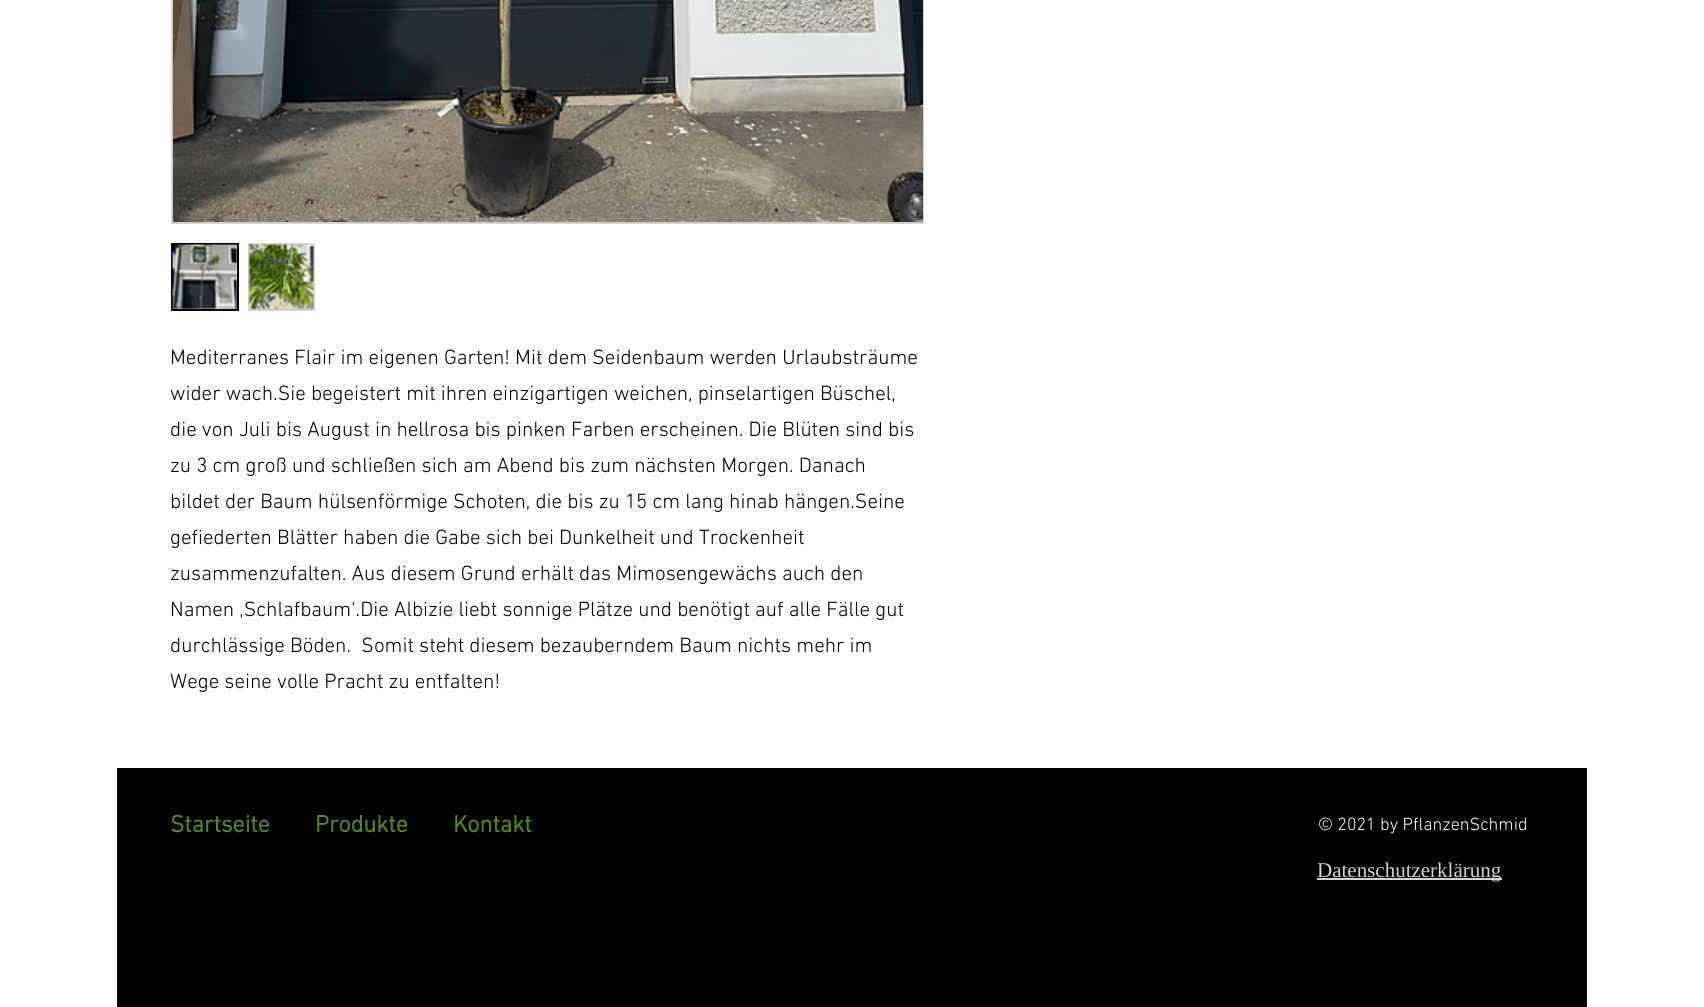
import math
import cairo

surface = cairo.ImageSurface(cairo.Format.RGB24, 1704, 1007)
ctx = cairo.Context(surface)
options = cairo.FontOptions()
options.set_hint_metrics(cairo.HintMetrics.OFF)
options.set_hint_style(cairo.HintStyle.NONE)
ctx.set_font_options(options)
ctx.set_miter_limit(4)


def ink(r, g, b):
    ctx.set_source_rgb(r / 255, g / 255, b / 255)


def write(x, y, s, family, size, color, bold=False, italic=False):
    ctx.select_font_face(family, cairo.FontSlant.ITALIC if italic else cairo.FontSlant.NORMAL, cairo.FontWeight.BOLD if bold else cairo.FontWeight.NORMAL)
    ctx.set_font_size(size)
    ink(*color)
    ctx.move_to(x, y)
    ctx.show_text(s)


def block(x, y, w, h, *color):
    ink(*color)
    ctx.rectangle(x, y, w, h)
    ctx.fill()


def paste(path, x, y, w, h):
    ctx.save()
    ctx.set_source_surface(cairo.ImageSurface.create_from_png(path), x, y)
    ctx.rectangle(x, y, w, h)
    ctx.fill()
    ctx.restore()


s1 = dict(family="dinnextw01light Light", size=21, color=(0, 0, 0))
s2 = dict(family="dinnextw01light", size=24, color=(88, 133, 34), bold=True)
s3 = dict(family="dinnextw01light Light", size=18, color=(255, 255, 255))
s4 = dict(family="Liberation Serif", size=21, color=(212, 208, 211))

ink(255, 255, 255)
ctx.paint()
ctx.rectangle(172, -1, 751, 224)
ink(212, 208, 211)
ctx.stroke()
paste("pic1.png", 173, 0, 750, 222)
ctx.rectangle(172, 244, 66, 66)
ctx.fill_preserve()
ink(0, 0, 0)
ctx.stroke()
paste("pic2.png", 172, 244, 66, 66)
block(248, 243, 67, 68, 212, 208, 211)
paste("pic3.png", 248, 244, 66, 66)
write(170, 364, "Mediterranes Flair im eigenen Garten! Mit dem Seidenbaum werden Urlaubsträume", **s1)
write(170, 400, "wider wach.Sie begeistert mit ihren einzigartigen weichen, pinselartigen Büschel,", **s1)
write(170, 436, "die von Juli bis August in hellrosa bis pinken Farben erscheinen. Die Blüten sind bis", **s1)
write(170, 472, "zu 3 cm groß und schließen sich am Abend bis zum nächsten Morgen. Danach", **s1)
write(170, 508, "bildet der Baum hülsenförmige Schoten, die bis zu 15 cm lang hinab hängen.Seine", **s1)
write(170, 544, "gefiederten Blätter haben die Gabe sich bei Dunkelheit und Trockenheit", **s1)
write(170, 580, "zusammenzufalten. Aus diesem Grund erhält das Mimosengewächs auch den", **s1)
write(170, 616, "Namen ‚Schlafbaum‘.Die Albizie liebt sonnige Plätze und benötigt auf alle Fälle gut", **s1)
write(170, 652, "durchlässige Böden.  Somit steht diesem bezauberndem Baum nichts mehr im", **s1)
write(170, 688, "Wege seine volle Pracht zu entfalten!", **s1)
block(117, 768, 1470, 239, 0, 0, 0)
write(170, 832, "Startseite", **s2)
write(315, 832, "Produkte", **s2)
write(453, 832, "Kontakt", **s2)
write(1318, 830, "© 2021 by PflanzenSchmid", **s3)
block(1317, 878, 185, 2, 212, 208, 211)
write(1317, 877, "Datenschutzerklärung", **s4)
surface.write_to_png("screenshot.png")
